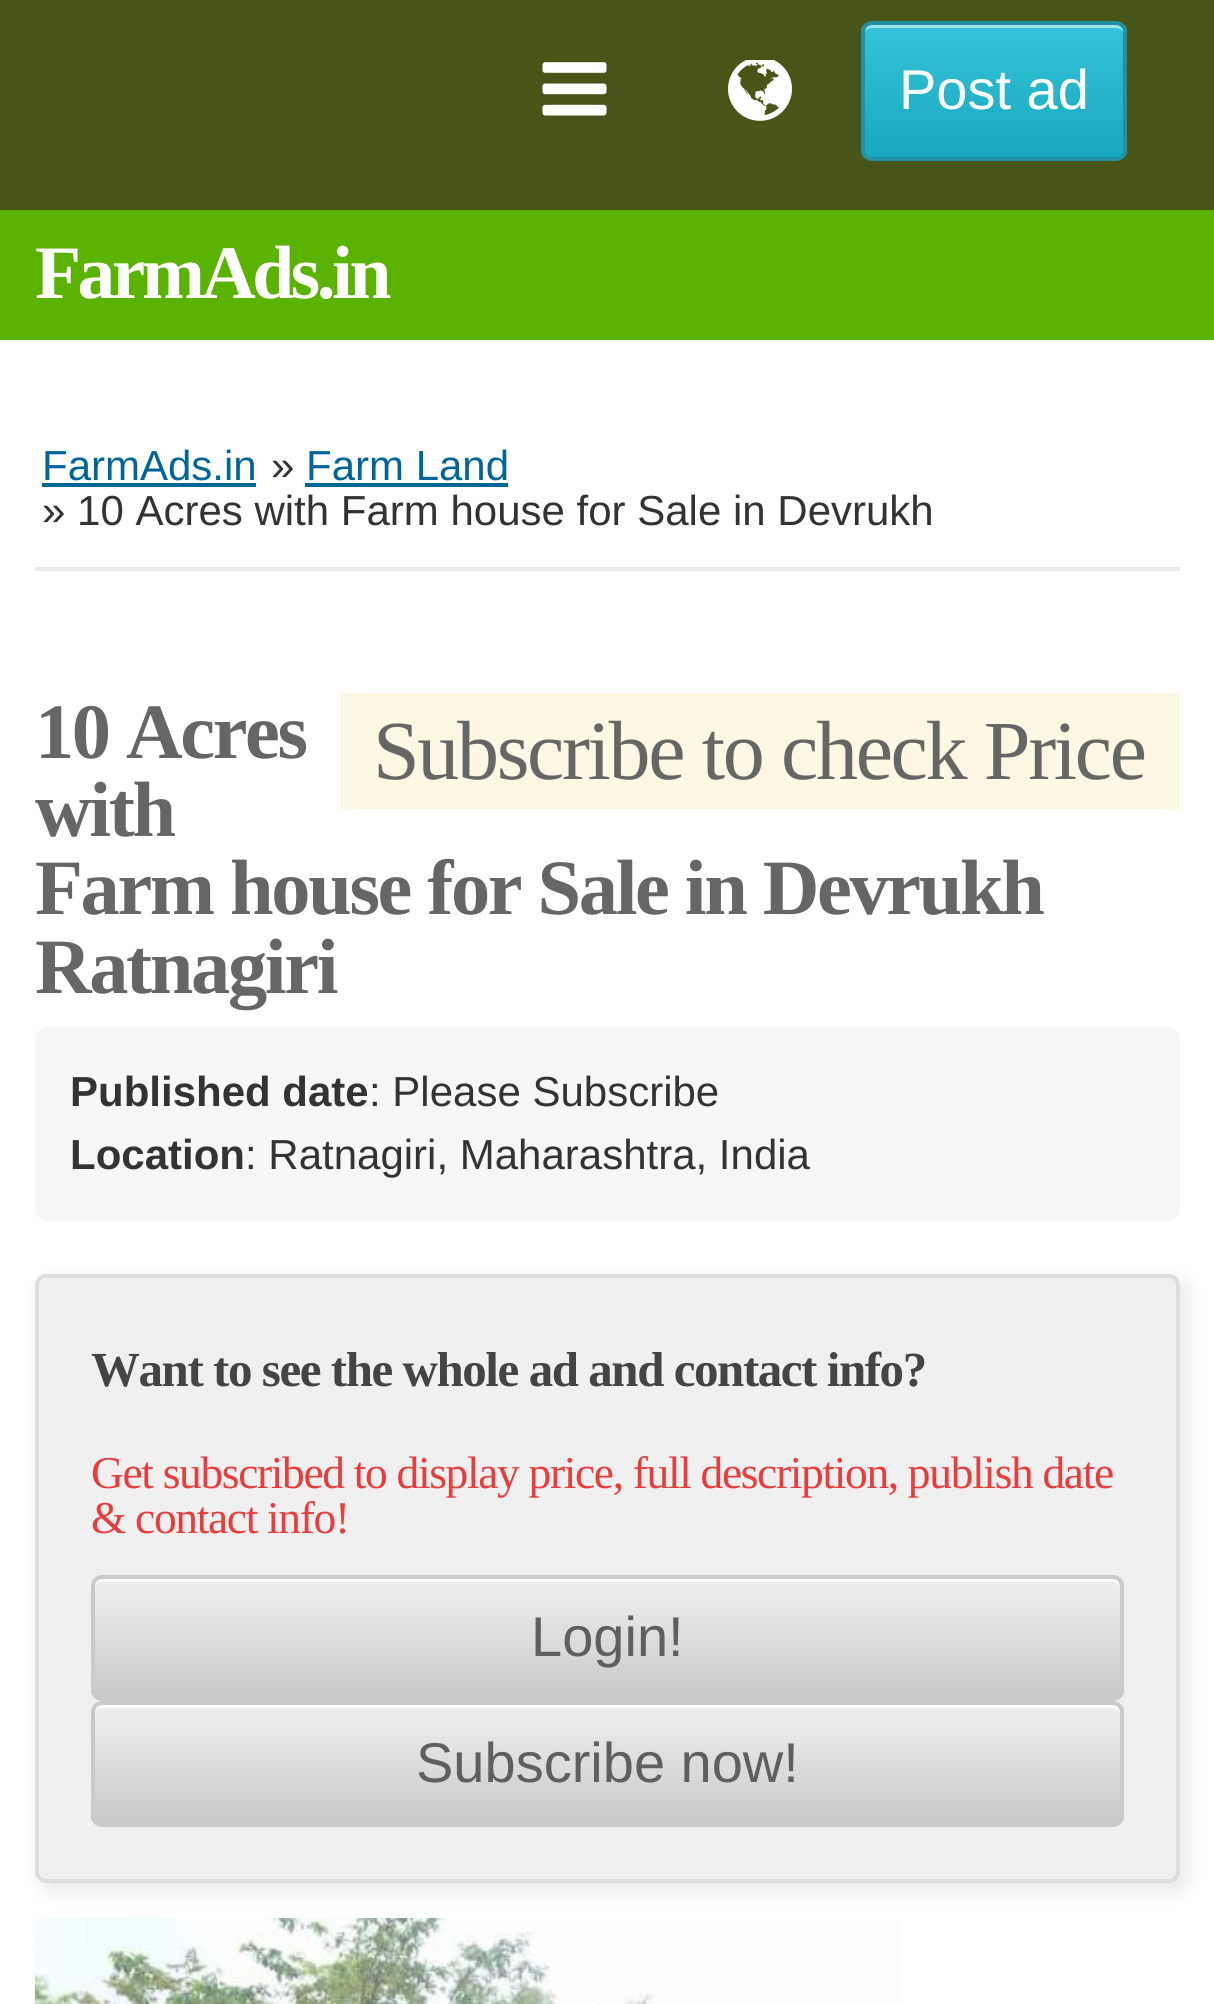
import math
import cairo

surface = cairo.ImageSurface(cairo.Format.RGB24, 1214, 2004)
ctx = cairo.Context(surface)
options = cairo.FontOptions()
options.set_hint_metrics(cairo.HintMetrics.OFF)
options.set_hint_style(cairo.HintStyle.NONE)
ctx.set_font_options(options)
ctx.set_miter_limit(4)


def ink(r, g, b):
    ctx.set_source_rgb(r / 255, g / 255, b / 255)


def write(x, y, s, family, size, color, bold=False, italic=False):
    ctx.select_font_face(family, cairo.FontSlant.ITALIC if italic else cairo.FontSlant.NORMAL, cairo.FontWeight.BOLD if bold else cairo.FontWeight.NORMAL)
    ctx.set_font_size(size)
    ink(*color)
    ctx.move_to(x, y)
    ctx.show_text(s)


def write_spaced(x, y, s, letter, word):
    ctx.move_to(x, y)
    for ch in s:
        ctx.show_text(ch)
        ctx.rel_move_to(letter + word * (ch == ' '), 0)


def block(x, y, w, h, *color):
    ink(*color)
    ctx.rectangle(x, y, w, h)
    ctx.fill()


def round_path(x, y, w, h, r):
    ctx.new_sub_path()
    for i, (u, v) in enumerate([(x + w - r, y + h - r), (x + r, y + h - r), (x + r, y + r), (x + w - r, y + r)]):
        ctx.arc(u, v, r, i * math.pi / 2, (i + 1) * math.pi / 2)
    ctx.close_path()


def blur_box(x, y, w, h, r, blur, alpha):
    ctx.push_group_with_content(cairo.Content.ALPHA)
    ctx.set_operator(cairo.Operator.SOURCE)
    for i in range(15, -16, -2):
        e = blur * i / 6
        if min(w, h) + 2 * e > 0:
            ctx.set_source_rgba(0, 0, 0, alpha * math.erfc((i - 1) / 8.5) / 2)
            round_path(x - e, y - e, w + 2 * e, h + 2 * e, max(0, min(r + e + blur * .6, min(w, h) / 2 + e)))
            ctx.fill()
    ctx.mask(ctx.pop_group())


def paste(path, x, y, w, h):
    ctx.save()
    ctx.set_source_surface(cairo.ImageSurface.create_from_png(path), x, y)
    ctx.rectangle(x, y, w, h)
    ctx.fill()
    ctx.restore()


s1 = dict(family="Liberation Sans", size=56, color=(255, 255, 255))
s2 = dict(family="Liberation Sans", size=42, color=(0, 102, 153))
s3 = dict(family="Liberation Sans", size=42, color=(51, 51, 51))
s4 = dict(family="Liberation Sans", size=42, color=(51, 51, 51), bold=True)
s5 = dict(family="Liberation Sans", size=56, color=(95, 95, 95))

ink(255, 255, 255)
ctx.paint()
block(0, 210, 1214, 130, 90, 179, 0)
block(0, 0, 1214, 210, 73, 84, 24)
paste("pic1.png", 542, 62, 65, 54)
paste("pic2.png", 728, 60, 64, 61)
ctx.save()
round_path(861, 21, 266, 140, 11)
ctx.clip()
gradient = cairo.LinearGradient(994, 24, 994, 158)
gradient.add_color_stop_rgba(0, 0.208, 0.765, 0.851, 1)
gradient.add_color_stop_rgba(1, 0.094, 0.655, 0.745, 1)
ctx.set_source(gradient)
ctx.rectangle(861, 25, 266, 133)
ctx.fill()
ctx.restore()
ink(160, 227, 237)
ctx.new_path()
ctx.move_to(872, 28)
ctx.line_to(1116, 28)
ctx.curve_to(1120, 28, 1124, 31, 1124, 35)
ctx.line_to(1124, 32)
ctx.curve_to(1124, 28, 1121, 25, 1117, 25)
ctx.line_to(872, 25)
ctx.curve_to(868, 25, 865, 28, 865, 32)
ctx.curve_to(866, 29, 869, 28, 872, 28)
ctx.close_path()
ctx.fill()
round_path(863, 23, 262, 136, 9)
ink(31, 145, 163)
ctx.set_line_width(4)
ctx.stroke()
write(899, 109, "Post ad", **s1)
ctx.select_font_face("Liberation Serif", cairo.FontSlant.NORMAL, cairo.FontWeight.BOLD)
ctx.set_font_size(75.5)
write_spaced(35, 298, "FarmAds.in", -3.5, 0)
block(35, 567, 1145, 4, 234, 234, 234)
write(42, 480, "FarmAds.in", **s2)
block(42, 483, 214, 4, 0, 102, 153)
write(271, 480, "»", **s3)
write(306, 480, "Farm Land", **s2)
block(305, 483, 203, 4, 0, 102, 153)
write(42, 525, "» 10 Acres with Farm house for Sale in Devrukh", **s3)
ctx.select_font_face("Liberation Serif", cairo.FontSlant.NORMAL, cairo.FontWeight.BOLD)
ctx.set_font_size(78.4)
ink(102, 102, 102)
write_spaced(35, 758, "10 Acres", -2.35, 0)
block(340, 693, 840, 116, 252, 248, 227)
ctx.select_font_face("Liberation Serif")
ctx.set_font_size(84)
ink(102, 102, 102)
write_spaced(373, 779, "Subscribe to check Price", -2.35, 0)
ctx.select_font_face("Liberation Serif", cairo.FontSlant.NORMAL, cairo.FontWeight.BOLD)
ctx.set_font_size(78.4)
write_spaced(35, 836, "with", -2.35, 0)
write_spaced(35, 914, "Farm house for Sale in Devrukh", -2.35, 0)
write_spaced(35, 993, "Ratnagiri", -2.35, 0)
ink(247, 247, 247)
round_path(35, 1026, 1145, 196, 14)
ctx.fill()
write(70, 1106, "Published date", **s4)
write(369, 1106, ": Please Subscribe", **s3)
write(70, 1169, "Location", **s4)
write(245, 1169, ": Ratnagiri, Maharashtra, India", **s3)
ink(0, 0, 0)
blur_box(42, 1281, 1145, 609, 11, 10.5, 0.1)
ink(240, 240, 240)
round_path(35, 1274, 1145, 609, 11)
ctx.fill()
round_path(37, 1276, 1141, 605, 9)
ctx.set_source_rgba(0, 0, 0, 0.08)
ctx.stroke()
ctx.select_font_face("Liberation Serif", cairo.FontSlant.NORMAL, cairo.FontWeight.BOLD)
ctx.set_font_size(49)
ink(68, 68, 68)
write_spaced(91, 1386, "Want to see the whole ad and contact info?", -1.45, 0)
ctx.select_font_face("Liberation Serif")
ctx.set_font_size(45.5)
ink(235, 60, 60)
write_spaced(91, 1488, "Get subscribed to display price, full description, publish date", -1.35, 0)
write_spaced(91, 1533, "& contact info!", -1.35, 0)
ctx.save()
round_path(91, 1575, 1033, 126, 11)
ctx.clip()
gradient = cairo.LinearGradient(607, 1579, 607, 1698)
gradient.add_color_stop_rgba(0, 0.941, 0.941, 0.941, 1)
gradient.add_color_stop_rgba(1, 0.788, 0.788, 0.788, 1)
ctx.set_source(gradient)
ctx.rectangle(91, 1579, 1033, 119)
ctx.fill()
ctx.restore()
ink(255, 255, 255)
ctx.new_path()
ctx.move_to(102, 1582)
ctx.line_to(1113, 1582)
ctx.curve_to(1117, 1582, 1120, 1585, 1120, 1589)
ctx.curve_to(1120, 1584, 1119, 1579, 1113, 1579)
ctx.line_to(102, 1579)
ctx.curve_to(98, 1579, 95, 1582, 95, 1586)
ctx.curve_to(96, 1583, 99, 1582, 102, 1582)
ctx.close_path()
ctx.fill()
round_path(93, 1577, 1029, 122, 9)
ink(202, 202, 202)
ctx.stroke()
write(531, 1656, "Login!", **s5)
ctx.save()
round_path(91, 1701, 1033, 126, 11)
ctx.clip()
gradient = cairo.LinearGradient(607, 1705, 607, 1824)
gradient.add_color_stop_rgba(0, 0.941, 0.941, 0.941, 1)
gradient.add_color_stop_rgba(1, 0.788, 0.788, 0.788, 1)
ctx.set_source(gradient)
ctx.rectangle(91, 1705, 1033, 119)
ctx.fill()
ctx.restore()
ink(255, 255, 255)
ctx.new_path()
ctx.move_to(102, 1708)
ctx.line_to(1113, 1708)
ctx.curve_to(1117, 1708, 1120, 1711, 1120, 1715)
ctx.curve_to(1120, 1710, 1119, 1705, 1113, 1705)
ctx.line_to(102, 1705)
ctx.curve_to(98, 1705, 95, 1708, 95, 1712)
ctx.curve_to(96, 1709, 99, 1708, 102, 1708)
ctx.close_path()
ctx.fill()
round_path(93, 1703, 1029, 122, 9)
ink(202, 202, 202)
ctx.stroke()
write(416, 1782, "Subscribe now!", **s5)
paste("pic3.png", 35, 1918, 866, 86)
surface.write_to_png("screenshot.png")
